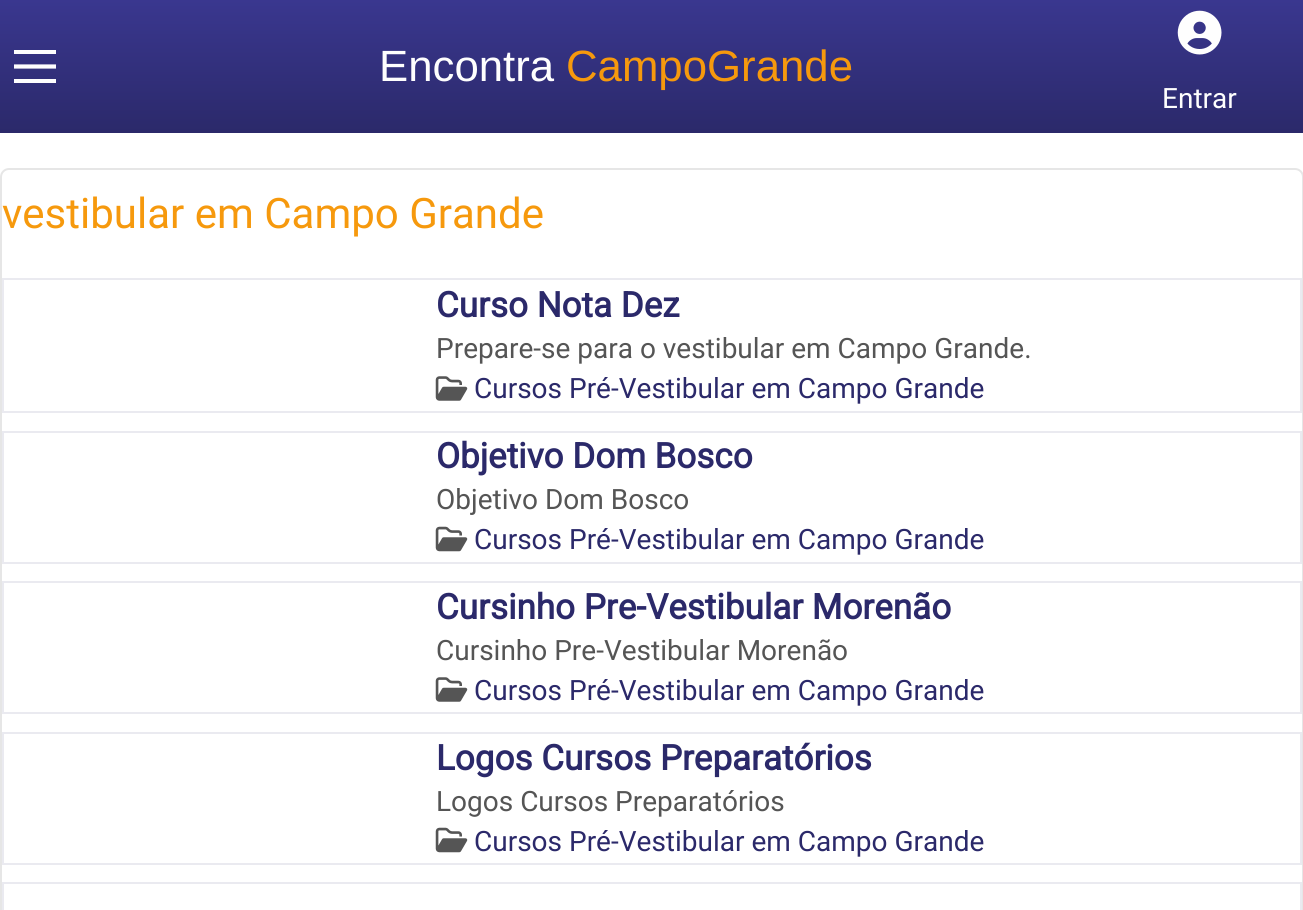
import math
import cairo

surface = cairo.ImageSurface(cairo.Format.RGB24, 1303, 910)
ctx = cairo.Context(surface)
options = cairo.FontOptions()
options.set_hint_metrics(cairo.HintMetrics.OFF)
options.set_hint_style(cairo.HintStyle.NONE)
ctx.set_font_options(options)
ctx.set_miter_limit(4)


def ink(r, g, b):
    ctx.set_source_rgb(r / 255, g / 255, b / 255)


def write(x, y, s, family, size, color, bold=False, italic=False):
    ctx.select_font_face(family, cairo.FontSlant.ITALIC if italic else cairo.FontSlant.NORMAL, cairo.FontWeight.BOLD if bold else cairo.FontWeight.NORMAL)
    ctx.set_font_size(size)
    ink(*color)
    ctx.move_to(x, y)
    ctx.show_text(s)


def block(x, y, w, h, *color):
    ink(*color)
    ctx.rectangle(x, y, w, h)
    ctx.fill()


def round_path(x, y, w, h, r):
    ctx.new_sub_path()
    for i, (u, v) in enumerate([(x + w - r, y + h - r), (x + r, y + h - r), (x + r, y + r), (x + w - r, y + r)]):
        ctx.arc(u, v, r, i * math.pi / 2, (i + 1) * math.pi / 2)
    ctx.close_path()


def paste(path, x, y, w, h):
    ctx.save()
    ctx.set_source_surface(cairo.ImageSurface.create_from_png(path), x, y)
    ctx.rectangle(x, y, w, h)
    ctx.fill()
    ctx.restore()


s1 = dict(family="Liberation Sans", size=43.75, color=(254, 254, 254))
s2 = dict(family="Liberation Sans", size=43.75, color=(246, 153, 13))
s3 = dict(family="Roboto", size=28, color=(254, 254, 254))
s4 = dict(family="Roboto", size=42, color=(246, 153, 13))
s5 = dict(family="Roboto", size=35, color=(43, 41, 106), bold=True)
s6 = dict(family="Roboto", size=28, color=(85, 85, 85))
s7 = dict(family="Roboto", size=28, color=(43, 41, 106))

ink(255, 255, 255)
ctx.paint()
gradient = cairo.LinearGradient(652, 0, 652, 133)
gradient.add_color_stop_rgba(0, 0.227, 0.216, 0.561, 1)
gradient.add_color_stop_rgba(1, 0.169, 0.161, 0.416, 1)
ctx.set_source(gradient)
ctx.rectangle(0, 0, 1303, 133)
ctx.fill()
block(14, 50, 42, 4, 254, 254, 254)
ctx.new_path()
ctx.move_to(14, 66.5)
ctx.line_to(56, 66.5)
ctx.set_line_width(4.2)
ctx.stroke()
block(14, 79, 42, 4, 254, 254, 254)
write(379, 81, "Encontra", **s1)
write(566, 81, "CampoGrande", **s2)
paste("pic1.png", 1177, 10, 45, 45)
write(1162, 108, "Entrar", **s3)
round_path(1, 169, 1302, 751, 8)
ink(230, 230, 230)
ctx.set_line_width(2)
ctx.stroke()
write(2, 228, "vestibular em Campo Grande", **s4)
ctx.rectangle(3, 279, 1298, 133)
ink(234, 234, 240)
ctx.stroke()
write(436, 317, "Curso Nota Dez", **s5)
write(436, 358, "Prepare-se para o vestibular em Campo Grande.", **s6)
paste("pic2.png", 435, 376, 33, 25)
write(474, 398, "Cursos Pré-Vestibular em Campo Grande", **s7)
ctx.rectangle(3, 432, 1298, 131)
ink(234, 234, 240)
ctx.stroke()
write(436, 468, "Objetivo Dom Bosco", **s5)
write(436, 509, "Objetivo Dom Bosco", **s6)
paste("pic3.png", 435, 526, 33, 26)
write(474, 549, "Cursos Pré-Vestibular em Campo Grande", **s7)
ctx.rectangle(3, 582, 1298, 131)
ink(234, 234, 240)
ctx.stroke()
write(436, 619, "Cursinho Pre-Vestibular Morenão", **s5)
write(436, 660, "Cursinho Pre-Vestibular Morenão", **s6)
paste("pic2.png", 435, 677, 33, 25)
write(474, 700, "Cursos Pré-Vestibular em Campo Grande", **s7)
ctx.rectangle(3, 733, 1298, 131)
ink(234, 234, 240)
ctx.stroke()
write(436, 770, "Logos Cursos Preparatórios", **s5)
write(436, 811, "Logos Cursos Preparatórios", **s6)
paste("pic3.png", 435, 827, 33, 26)
write(474, 851, "Cursos Pré-Vestibular em Campo Grande", **s7)
ctx.rectangle(3, 883, 1298, 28)
ink(234, 234, 240)
ctx.stroke()
surface.write_to_png("screenshot.png")
